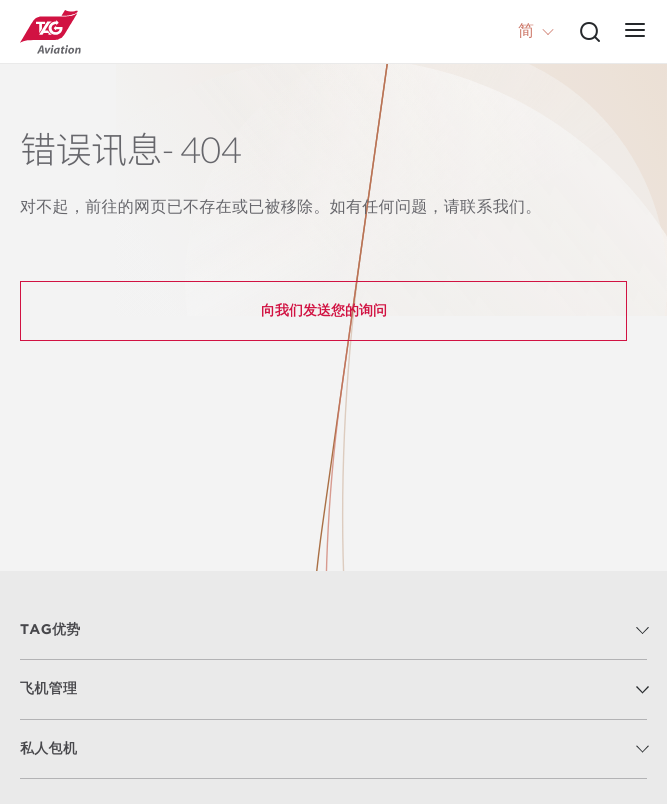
import math
import cairo

surface = cairo.ImageSurface(cairo.Format.RGB24, 667, 804)
ctx = cairo.Context(surface)
options = cairo.FontOptions()
options.set_hint_metrics(cairo.HintMetrics.OFF)
options.set_hint_style(cairo.HintStyle.NONE)
ctx.set_font_options(options)
ctx.set_miter_limit(4)


def ink(r, g, b):
    ctx.set_source_rgb(r / 255, g / 255, b / 255)


def write(x, y, s, family, size, color, bold=False, italic=False):
    ctx.select_font_face(family, cairo.FontSlant.ITALIC if italic else cairo.FontSlant.NORMAL, cairo.FontWeight.BOLD if bold else cairo.FontWeight.NORMAL)
    ctx.set_font_size(size)
    ink(*color)
    ctx.move_to(x, y)
    ctx.show_text(s)


def write_spaced(x, y, s, letter, word):
    ctx.move_to(x, y)
    for ch in s:
        ctx.show_text(ch)
        ctx.rel_move_to(letter + word * (ch == ' '), 0)


def block(x, y, w, h, *color):
    ink(*color)
    ctx.rectangle(x, y, w, h)
    ctx.fill()


def paste(path, x, y, w, h):
    ctx.save()
    ctx.set_source_surface(cairo.ImageSurface.create_from_png(path), x, y)
    ctx.rectangle(x, y, w, h)
    ctx.fill()
    ctx.restore()


s1 = dict(family="WenQuanYi Zen Hei Medium", size=16, color=(204, 117, 102))
s2 = dict(family="WenQuanYi Zen Hei", size=14, color=(209, 18, 66), bold=True)

ink(243, 243, 243)
ctx.paint()
paste("pic2.png", 116, 64, 551, 252)
ctx.new_path()
ctx.move_to(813.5, -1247)
ctx.line_to(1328, -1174.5)
ctx.curve_to(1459, -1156, 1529.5, -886.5, 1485.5, -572)
ctx.line_to(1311.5, 664)
ctx.curve_to(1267.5, 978.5, 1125.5, 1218.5, 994.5, 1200)
ctx.line_to(479.5, 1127.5)
ctx.curve_to(348.5, 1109, 278, 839.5, 322.5, 525)
ctx.line_to(496, -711)
ctx.curve_to(540.5, -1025.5, 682.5, -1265.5, 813.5, -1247)
ctx.close_path()
ink(169, 111, 68)
ctx.set_line_width(1.4)
ctx.stroke()
ctx.new_path()
ctx.move_to(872.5, -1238.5)
ctx.line_to(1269, -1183)
ctx.curve_to(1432.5, -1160, 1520.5, -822.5, 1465.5, -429.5)
ctx.line_to(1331.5, 521.5)
ctx.curve_to(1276.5, 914.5, 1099, 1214.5, 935, 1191.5)
ctx.line_to(539, 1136)
ctx.curve_to(375, 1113, 287, 775.5, 342.5, 382.5)
ctx.line_to(476, -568.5)
ctx.curve_to(531.5, -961.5, 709, -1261.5, 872.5, -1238.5)
ctx.close_path()
ctx.set_source_rgba(0.8, 0.459, 0.4, 0.7)
ctx.stroke()
ctx.new_path()
ctx.move_to(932, -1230.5)
ctx.line_to(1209.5, -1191.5)
ctx.curve_to(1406, -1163.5, 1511.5, -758.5, 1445.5, -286.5)
ctx.line_to(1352, 379)
ctx.curve_to(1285.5, 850.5, 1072.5, 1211, 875.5, 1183.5)
ctx.line_to(598.5, 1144.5)
ctx.curve_to(402, 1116.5, 296, 711.5, 362.5, 239.5)
ctx.line_to(456, -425.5)
ctx.curve_to(522.5, -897.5, 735.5, -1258, 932, -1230.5)
ctx.close_path()
ctx.set_source_rgba(0.663, 0.435, 0.267, 0.3)
ctx.stroke()
block(0, 0, 667, 63, 255, 255, 255)
block(0, 63, 667, 1, 234, 234, 234)
paste("pic1.png", 20, 10, 61, 44)
write(518, 36, "简", **s1)
ctx.new_path()
ctx.move_to(547.5, 34.5)
ctx.line_to(553, 29)
ctx.line_to(553.5, 29.5)
ctx.line_to(548, 35)
ctx.close_path()
ctx.fill()
ctx.new_path()
ctx.move_to(542.5, 29.5)
ctx.line_to(543, 29)
ctx.line_to(548.5, 34.5)
ctx.line_to(548, 35)
ctx.close_path()
ctx.fill()
ctx.new_path()
ctx.move_to(589, 39)
ctx.curve_to(599.5, 39, 599.5, 23, 589, 23)
ctx.curve_to(578.5, 23, 578.5, 39, 589, 39)
ctx.close_path()
ctx.move_to(599, 41)
ctx.line_to(594.5, 36.5)
ink(37, 40, 43)
ctx.set_line_width(2)
ctx.set_line_cap(cairo.LineCap.ROUND)
ctx.set_line_join(cairo.LineJoin.ROUND)
ctx.stroke()
ctx.new_path()
ctx.move_to(626, 30)
ctx.line_to(644, 30)
ctx.move_to(626, 24)
ctx.line_to(644, 24)
ctx.move_to(626, 36)
ctx.line_to(644, 36)
ctx.stroke()
ctx.select_font_face("Noto Sans SC Thin")
ctx.set_font_size(36)
ink(102, 102, 107)
write_spaced(20, 163, "错误讯息", -0.5, 0)
ctx.select_font_face("Lato Light")
write_spaced(162, 163, "- 404", -0.5, 0)
ctx.select_font_face("WenQuanYi Zen Hei Medium")
ctx.set_font_size(16)
write_spaced(20, 212, "对不起，前往的网页已不存在或已被移除。如有任何问题，请联系我们。", 0.3, 0)
ctx.rectangle(20.5, 281.5, 606, 59)
ink(209, 18, 66)
ctx.set_line_width(1)
ctx.set_line_cap(cairo.LineCap.BUTT)
ctx.set_line_join(cairo.LineJoin.MITER)
ctx.stroke()
write(261, 315, "向我们发送您的询问", **s2)
block(0, 571, 667, 233, 234, 234, 234)
block(20, 659, 627, 1, 179, 179, 181)
ctx.select_font_face("Gotham", cairo.FontSlant.NORMAL, cairo.FontWeight.BOLD)
ink(71, 71, 75)
write_spaced(20, 634, "TAG", 0.3, 0)
ctx.select_font_face("WenQuanYi Zen Hei", cairo.FontSlant.NORMAL, cairo.FontWeight.BOLD)
write_spaced(52, 634, "优势", 0.3, 0)
ink(37, 40, 43)
ctx.new_path()
ctx.move_to(642, 633.5)
ctx.line_to(648, 627)
ctx.line_to(649, 627.5)
ctx.line_to(642.5, 634)
ctx.close_path()
ctx.fill()
ctx.new_path()
ctx.move_to(636, 627.5)
ctx.line_to(637, 627)
ctx.line_to(643, 633.5)
ctx.line_to(642.5, 634)
ctx.close_path()
ctx.fill()
block(20, 719, 627, 1, 179, 179, 181)
ink(71, 71, 75)
write_spaced(20, 693, "飞机管理", 0.3, 0)
ink(37, 40, 43)
ctx.new_path()
ctx.move_to(642, 692.5)
ctx.line_to(648, 686)
ctx.line_to(649, 687)
ctx.line_to(642.5, 693.5)
ctx.close_path()
ctx.fill()
ctx.new_path()
ctx.move_to(636, 687)
ctx.line_to(637, 686)
ctx.line_to(643, 692.5)
ctx.line_to(642.5, 693.5)
ctx.close_path()
ctx.fill()
block(20, 778, 627, 1, 179, 179, 181)
ink(71, 71, 75)
write_spaced(20, 753, "私人包机", 0.3, 0)
ink(37, 40, 43)
ctx.new_path()
ctx.move_to(642, 752)
ctx.line_to(648, 745.5)
ctx.line_to(649, 746)
ctx.line_to(642.5, 752.5)
ctx.close_path()
ctx.fill()
ctx.new_path()
ctx.move_to(636, 746)
ctx.line_to(637, 745.5)
ctx.line_to(643, 752)
ctx.line_to(642.5, 752.5)
ctx.close_path()
ctx.fill()
surface.write_to_png("screenshot.png")
